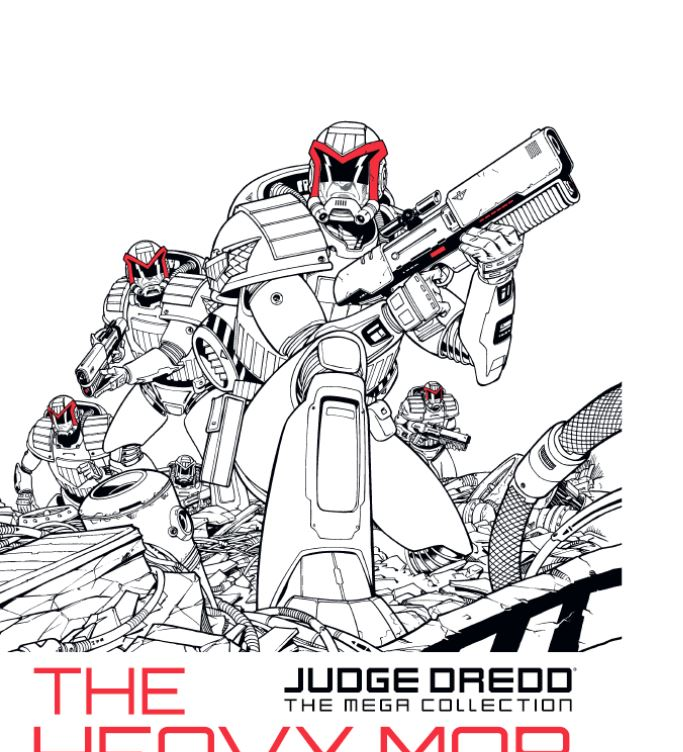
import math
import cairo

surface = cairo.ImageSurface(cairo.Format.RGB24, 683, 752)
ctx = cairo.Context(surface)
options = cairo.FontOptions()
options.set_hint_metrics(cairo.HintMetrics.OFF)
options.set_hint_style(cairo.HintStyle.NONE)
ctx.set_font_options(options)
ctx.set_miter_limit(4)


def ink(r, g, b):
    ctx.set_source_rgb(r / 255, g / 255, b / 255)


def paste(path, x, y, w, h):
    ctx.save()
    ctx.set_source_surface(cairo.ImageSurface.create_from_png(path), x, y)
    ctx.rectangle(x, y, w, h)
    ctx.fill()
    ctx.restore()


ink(255, 255, 255)
ctx.paint()
paste("pic1.png", 0, 120, 624, 632)
surface.write_to_png("screenshot.png")
